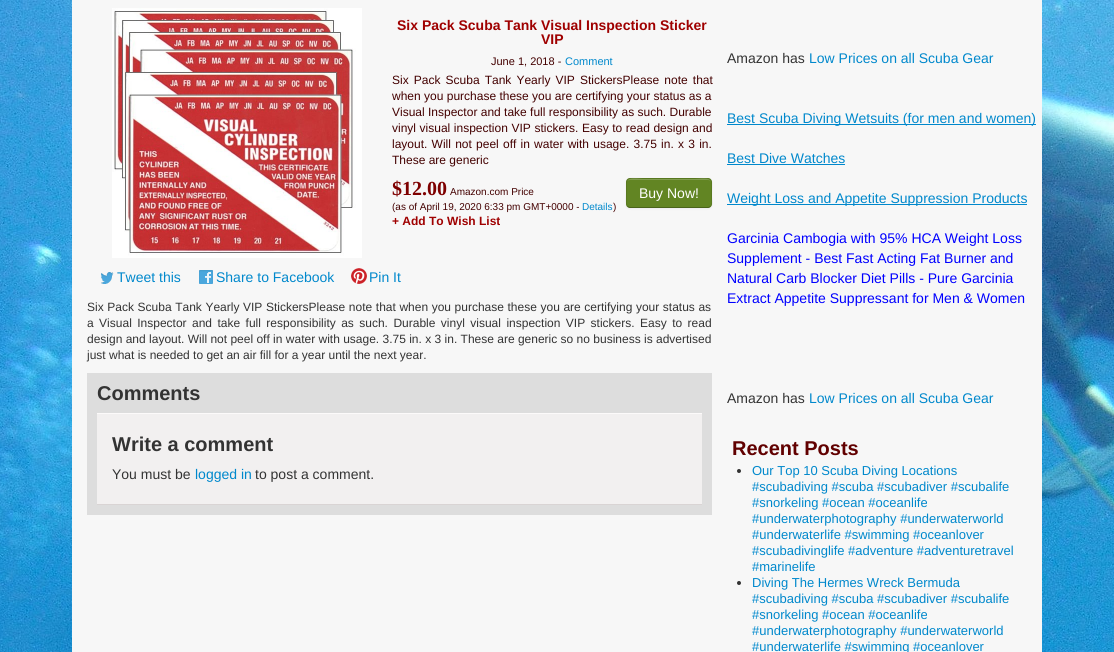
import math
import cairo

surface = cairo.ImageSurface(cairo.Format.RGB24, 1114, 652)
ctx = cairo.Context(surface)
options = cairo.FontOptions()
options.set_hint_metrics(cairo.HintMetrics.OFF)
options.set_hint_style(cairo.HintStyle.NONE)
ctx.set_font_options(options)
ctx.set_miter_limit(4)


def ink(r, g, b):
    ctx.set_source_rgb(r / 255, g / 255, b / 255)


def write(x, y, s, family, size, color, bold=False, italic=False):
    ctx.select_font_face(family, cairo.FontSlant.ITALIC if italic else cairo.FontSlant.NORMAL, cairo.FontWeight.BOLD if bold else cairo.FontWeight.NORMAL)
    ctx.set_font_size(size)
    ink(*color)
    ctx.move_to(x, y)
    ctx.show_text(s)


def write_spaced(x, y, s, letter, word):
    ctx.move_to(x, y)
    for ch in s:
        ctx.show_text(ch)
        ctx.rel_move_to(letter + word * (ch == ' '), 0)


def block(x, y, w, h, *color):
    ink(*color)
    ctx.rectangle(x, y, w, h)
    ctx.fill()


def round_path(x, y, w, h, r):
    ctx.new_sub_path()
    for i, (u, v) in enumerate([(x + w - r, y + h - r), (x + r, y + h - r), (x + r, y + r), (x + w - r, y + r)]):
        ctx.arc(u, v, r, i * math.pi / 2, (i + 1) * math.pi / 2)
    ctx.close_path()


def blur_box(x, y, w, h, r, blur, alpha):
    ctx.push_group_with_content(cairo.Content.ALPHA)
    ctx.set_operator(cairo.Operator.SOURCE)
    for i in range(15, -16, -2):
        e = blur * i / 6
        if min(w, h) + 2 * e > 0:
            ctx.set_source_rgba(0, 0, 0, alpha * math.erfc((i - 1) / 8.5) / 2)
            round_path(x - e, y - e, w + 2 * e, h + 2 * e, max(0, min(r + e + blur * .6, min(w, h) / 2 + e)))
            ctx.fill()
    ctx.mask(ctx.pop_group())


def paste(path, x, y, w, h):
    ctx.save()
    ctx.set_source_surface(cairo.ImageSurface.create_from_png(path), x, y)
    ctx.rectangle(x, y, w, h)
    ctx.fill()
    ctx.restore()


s1 = dict(family="Liberation Sans", size=14, color=(159, 0, 0), bold=True)
s2 = dict(family="Liberation Sans", size=11, color=(67, 0, 0))
s3 = dict(family="Liberation Sans", size=11, color=(0, 136, 204))
s4 = dict(family="Liberation Sans", size=12, color=(67, 0, 0))
s5 = dict(family="Liberation Serif", size=20, color=(126, 0, 0), bold=True)
s6 = dict(family="Liberation Sans", size=10, color=(67, 0, 0))
s7 = dict(family="Liberation Sans", size=14, color=(255, 255, 255))
s8 = dict(family="Liberation Sans", size=10, color=(0, 136, 204))
s9 = dict(family="Liberation Sans", size=12, color=(159, 0, 0), bold=True)
s10 = dict(family="Liberation Sans", size=14, color=(0, 136, 204))
s11 = dict(family="Liberation Sans", size=12, color=(51, 51, 51))
s12 = dict(family="Liberation Sans", size=20, color=(51, 51, 51), bold=True)
s13 = dict(family="Liberation Sans", size=14, color=(51, 51, 51))
s14 = dict(family="Liberation Sans", size=14, color=(0, 0, 255))
s15 = dict(family="Liberation Sans", size=20, color=(97, 0, 0), bold=True)
s16 = dict(family="Liberation Sans", size=13, color=(0, 136, 204))

ink(255, 255, 255)
ctx.paint()
paste("pic1.png", 0, 0, 1114, 652)
block(72, 0, 970, 652, 247, 247, 247)
paste("pic2.png", 112, 8, 250, 250)
write(397, 30, "Six Pack Scuba Tank Visual Inspection Sticker", **s1)
write(541, 44, "VIP", **s1)
write(491, 65, "June 1, 2018 -", **s2)
write(565, 65, "Comment", **s3)
ctx.set_font_size(12)
ink(67, 0, 0)
write_spaced(392, 84, "Six Pack Scuba Tank Yearly VIP StickersPlease note that", 0, 1.75)
write(392, 100, "when you purchase these you are certifying your status as a", **s4)
write(392, 116, "Visual Inspector and take full responsibility as such. Durable", **s4)
write_spaced(392, 132, "vinyl visual inspection VIP stickers. Easy to read design and", 0, 0.25)
write_spaced(392, 148, "layout. Will not peel off in water with usage. 3.75 in. x 3 in.", 0, 0.9)
write(392, 164, "These are generic", **s4)
write(392, 195, "$12.00", **s5)
write(450, 195, "Amazon.com Price", **s6)
ink(0, 0, 0)
blur_box(626, 179, 86, 30, 4, 1, 0.05)
ink(98, 133, 35)
round_path(626, 178, 86, 30, 4)
ctx.fill()
ink(129, 157, 79)
ctx.new_path()
ctx.move_to(630, 180)
ctx.line_to(708, 180)
ctx.curve_to(710, 180, 711, 181, 711, 183)
ctx.curve_to(711, 176, 699, 179, 695, 179)
ctx.line_to(643, 179)
ctx.curve_to(639, 179, 627, 176, 627, 183)
ctx.curve_to(627, 181, 628, 180, 630, 180)
ctx.close_path()
ctx.fill()
ctx.new_path()
ctx.move_to(710.5, 206.5)
ctx.line_to(708.5, 207.5)
ctx.line_to(629.5, 207.5)
ctx.line_to(627.5, 206.5)
ctx.set_source_rgba(0, 0, 0, 0.25)
ctx.set_line_width(1)
ctx.stroke()
ctx.new_path()
ctx.move_to(627.5, 206.5)
ctx.curve_to(625.5, 204.5, 626.5, 196, 626.5, 193)
ctx.curve_to(626.5, 175.5, 624.5, 178.5, 643, 178.5)
ctx.line_to(695, 178.5)
ctx.curve_to(715.5, 178.5, 711.5, 176.5, 711.5, 196.5)
ctx.curve_to(711.5, 199.5, 713, 204, 710.5, 206.5)
ctx.set_source_rgba(0, 0, 0, 0.1)
ctx.stroke()
write(639, 198, "Buy Now!", **s7)
write(392, 210, "(as of April 19, 2020 6:33 pm GMT+0000 -", **s6)
write(582, 210, "Details", **s8)
write(613, 210, ")", **s6)
write(392, 225, "+ Add To Wish List", **s9)
paste("pic3.png", 101, 272, 13, 12)
write(117, 282, "Tweet this", **s10)
paste("pic4.png", 199, 270, 14, 14)
write(216, 282, "Share to Facebook", **s10)
paste("pic5.png", 351, 268, 16, 16)
write(369, 282, "Pin It", **s10)
ctx.set_font_size(12)
ink(51, 51, 51)
write_spaced(87, 311, "Six Pack Scuba Tank Yearly VIP StickersPlease note that when you purchase these you are certifying your status as", 0, 0.25)
write_spaced(87, 327, "a Visual Inspector and take full responsibility as such. Durable vinyl visual inspection VIP stickers. Easy to read", 0, 2.1)
write(87, 343, "design and layout. Will not peel off in water with usage. 3.75 in. x 3 in. These are generic so no business is advertised", **s11)
write(87, 359, "just what is needed to get an air fill for a year until the next year.", **s11)
block(87, 373, 625, 142, 221, 221, 221)
write(97, 400, "Comments", **s12)
block(97, 414, 605, 90, 242, 240, 240)
block(97, 413, 605, 1, 252, 250, 250)
block(97, 504, 605, 1, 217, 212, 212)
write(112, 451, "Write a comment", **s12)
write(112, 479, "You must be", **s13)
write(195, 479, "logged in", **s10)
write(255, 479, "to post a comment.", **s13)
write(727, 63, "Amazon has", **s13)
write(809, 63, "Low Prices on all Scuba Gear", **s10)
block(727, 124, 309, 1, 0, 136, 204)
write(727, 123, "Best Scuba Diving Wetsuits (for men and women)", **s10)
write(727, 163, "Best Dive Watches", **s10)
block(727, 164, 118, 1, 0, 136, 204)
block(727, 204, 300, 1, 0, 136, 204)
write(727, 203, "Weight Loss and Appetite Suppression Products", **s10)
write(727, 243, "Garcinia Cambogia with 95% HCA Weight Loss", **s14)
write(727, 263, "Supplement - Best Fast Acting Fat Burner and", **s14)
write(727, 283, "Natural Carb Blocker Diet Pills - Pure Garcinia", **s14)
write(727, 303, "Extract Appetite Suppressant for Men & Women", **s14)
write(727, 403, "Amazon has", **s13)
write(809, 403, "Low Prices on all Scuba Gear", **s10)
write(732, 455, "Recent Posts", **s15)
ink(51, 51, 51)
ctx.new_path()
ctx.arc(739, 471, 2, 0, 2 * math.pi)
ctx.fill()
write(752, 475, "Our Top 10 Scuba Diving Locations", **s16)
write(752, 491, "#scubadiving #scuba #scubadiver #scubalife", **s16)
write(752, 507, "#snorkeling #ocean #oceanlife", **s16)
write(752, 523, "#underwaterphotography #underwaterworld", **s16)
write(752, 539, "#underwaterlife #swimming #oceanlover", **s16)
write(752, 555, "#scubadivinglife #adventure #adventuretravel", **s16)
write(752, 571, "#marinelife", **s16)
ink(51, 51, 51)
ctx.new_path()
ctx.arc(739, 583, 2, 0, 2 * math.pi)
ctx.fill()
write(752, 587, "Diving The Hermes Wreck Bermuda", **s16)
write(752, 603, "#scubadiving #scuba #scubadiver #scubalife", **s16)
write(752, 619, "#snorkeling #ocean #oceanlife", **s16)
write(752, 635, "#underwaterphotography #underwaterworld", **s16)
write(752, 651, "#underwaterlife #swimming #oceanlover", **s16)
surface.write_to_png("screenshot.png")
